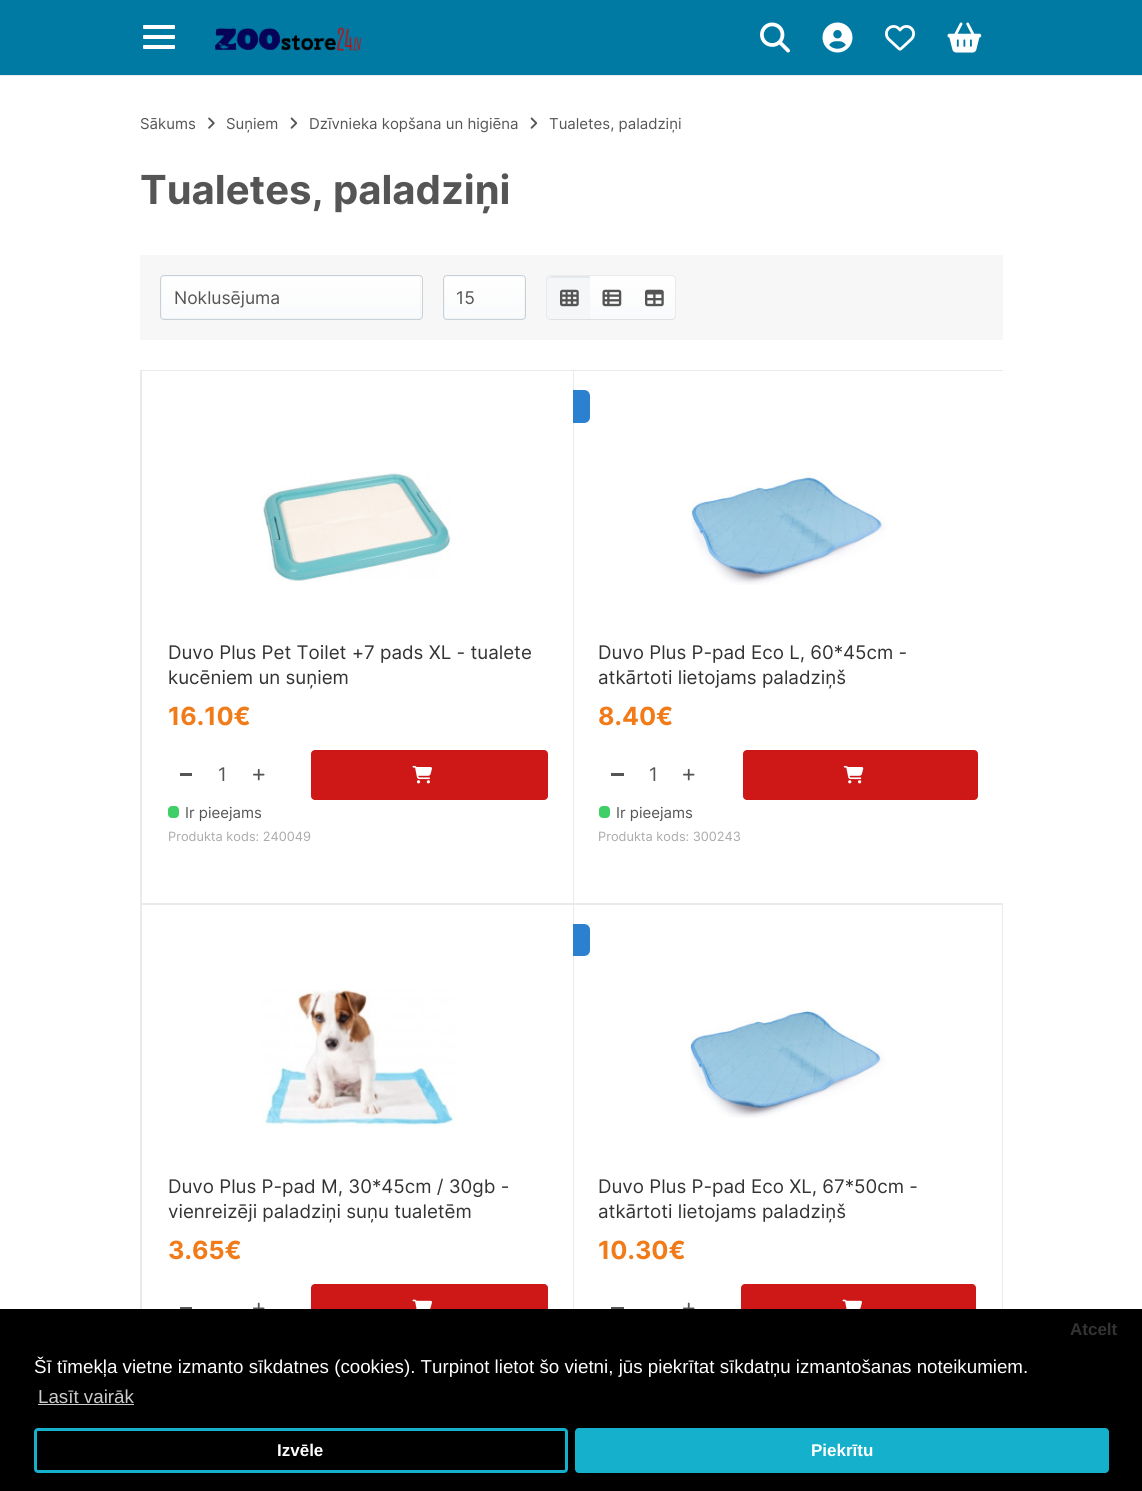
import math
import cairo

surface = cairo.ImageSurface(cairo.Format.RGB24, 1142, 1491)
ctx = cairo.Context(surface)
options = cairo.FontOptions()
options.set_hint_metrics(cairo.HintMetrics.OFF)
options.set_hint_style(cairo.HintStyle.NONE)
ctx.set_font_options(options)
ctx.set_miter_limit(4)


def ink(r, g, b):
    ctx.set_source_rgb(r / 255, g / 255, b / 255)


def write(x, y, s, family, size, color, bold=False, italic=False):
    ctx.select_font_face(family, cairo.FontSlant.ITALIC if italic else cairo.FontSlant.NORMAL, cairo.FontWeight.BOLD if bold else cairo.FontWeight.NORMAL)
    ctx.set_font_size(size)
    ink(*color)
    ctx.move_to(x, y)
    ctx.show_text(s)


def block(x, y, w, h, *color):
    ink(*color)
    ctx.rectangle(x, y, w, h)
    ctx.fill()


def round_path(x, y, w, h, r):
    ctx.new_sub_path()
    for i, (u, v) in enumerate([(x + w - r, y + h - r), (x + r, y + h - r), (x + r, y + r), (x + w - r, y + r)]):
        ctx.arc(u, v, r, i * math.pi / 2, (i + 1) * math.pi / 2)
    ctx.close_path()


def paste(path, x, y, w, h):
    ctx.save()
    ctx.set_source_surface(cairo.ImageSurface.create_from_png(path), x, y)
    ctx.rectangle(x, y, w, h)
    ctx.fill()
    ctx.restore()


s1 = dict(family="Inter", size=15, color=(85, 85, 85))
s2 = dict(family="Inter", size=40, color=(85, 85, 85), bold=True)
s3 = dict(family="Inter", size=17.5, color=(85, 85, 85))
s4 = dict(family="Inter", size=18.75, color=(51, 51, 51))
s5 = dict(family="Inter", size=25, color=(241, 123, 25), bold=True)
s6 = dict(family="Inter", size=18.75, color=(85, 85, 85))
s7 = dict(family="Inter", size=12.8, color=(170, 170, 170))
s8 = dict(family="Liberation Sans", size=17, color=(51, 51, 51), bold=True)
s9 = dict(family="Liberation Sans", size=17, color=(255, 255, 255), bold=True)
s10 = dict(family="Liberation Sans", size=18.75, color=(255, 255, 255))
s11 = dict(family="Liberation Sans", size=18.75, color=(204, 204, 204))

ink(255, 255, 255)
ctx.paint()
block(0, 0, 1142, 75, 0, 122, 163)
ink(255, 255, 255)
round_path(143, 25, 32, 4, 1)
ctx.fill()
round_path(143, 35, 32, 4, 1)
ctx.fill()
round_path(143, 45, 32, 4, 1)
ctx.fill()
paste("pic1.png", 215, 27, 147, 24)
paste("pic2.png", 760, 22, 30, 31)
paste("pic3.png", 822, 22, 31, 31)
paste("pic4.png", 885, 25, 30, 26)
paste("pic5.png", 947, 22, 35, 31)
block(0, 75, 1142, 1, 233, 234, 236)
write(140, 129, "Sākums", **s1)
paste("pic6.png", 208, 117, 7, 12)
write(226, 129, "Suņiem", **s1)
paste("pic7.png", 290, 117, 8, 12)
write(309, 129, "Dzīvnieka kopšana un higiēna", **s1)
paste("pic7.png", 530, 117, 8, 12)
write(549, 129, "Tualetes, paladziņi", **s1)
write(140, 204, "Tualetes, paladziņi", **s2)
block(140, 255, 863, 85, 247, 247, 247)
ctx.save()
round_path(160, 275, 263, 45, 4)
ctx.clip()
gradient = cairo.LinearGradient(291, 276, 291, 319)
gradient.add_color_stop_rgba(0, 1, 1, 1, 1)
gradient.add_color_stop_rgba(1, 0.976, 0.98, 0.984, 1)
ctx.set_source(gradient)
ctx.rectangle(160, 276, 263, 43)
ctx.fill()
ctx.restore()
ctx.rectangle(161.5, 276.5, 259, 42)
ctx.set_source_rgba(0.4, 0.443, 0.482, 0.05)
ctx.set_line_width(1)
ctx.stroke()
round_path(160.5, 275.5, 262, 44, 3.5)
ink(201, 209, 216)
ctx.stroke()
write(174, 304, "Noklusējuma", **s3)
ctx.save()
round_path(443, 275, 83, 45, 4)
ctx.clip()
gradient = cairo.LinearGradient(484, 276, 484, 319)
gradient.add_color_stop_rgba(0, 1, 1, 1, 1)
gradient.add_color_stop_rgba(1, 0.976, 0.98, 0.984, 1)
ctx.set_source(gradient)
ctx.rectangle(443, 276, 83, 43)
ctx.fill()
ctx.restore()
ctx.rectangle(444.5, 276.5, 80, 42)
ctx.set_source_rgba(0.4, 0.443, 0.482, 0.05)
ctx.stroke()
round_path(443.5, 275.5, 82, 44, 3.5)
ink(201, 209, 216)
ctx.stroke()
write(456, 304, "15", **s3)
round_path(546.5, 275.5, 129, 44, 3.5)
ink(233, 234, 236)
ctx.stroke()
ctx.set_source_rgba(0.086, 0.114, 0.145, 0.05)
ctx.new_path()
ctx.move_to(548, 317)
ctx.curve_to(549, 319, 550, 320, 552, 320)
ctx.line_to(590, 320)
ctx.line_to(590, 319)
ctx.line_to(551, 319)
ctx.curve_to(550, 319, 549, 318, 548, 317)
ctx.close_path()
ctx.fill()
ink(244, 246, 248)
ctx.new_path()
ctx.move_to(552, 276)
ctx.line_to(590, 276)
ctx.line_to(590, 319)
ctx.line_to(552, 319)
ctx.curve_to(550, 319, 548, 317, 548, 315)
ctx.line_to(548, 280)
ctx.curve_to(548, 278, 550, 276, 552, 276)
ctx.close_path()
ctx.fill()
ink(230, 233, 236)
ctx.new_path()
ctx.move_to(551, 278)
ctx.line_to(590, 278)
ctx.line_to(590, 276)
ctx.line_to(552, 276)
ctx.curve_to(550, 276, 548, 278, 548, 280)
ctx.line_to(548, 281)
ctx.curve_to(548, 279, 549, 278, 551, 278)
ctx.close_path()
ctx.fill()
paste("pic8.png", 560, 289, 19, 18)
ctx.set_source_rgba(0.086, 0.114, 0.145, 0.05)
ctx.new_path()
ctx.move_to(590, 319)
ctx.line_to(590, 320)
ctx.line_to(633, 320)
ctx.line_to(633, 278)
ctx.line_to(632, 278)
ctx.line_to(632, 319)
ctx.close_path()
ctx.fill()
gradient = cairo.LinearGradient(611, 276, 611, 319)
gradient.add_color_stop_rgba(0, 1, 1, 1, 1)
gradient.add_color_stop_rgba(1, 0.976, 0.98, 0.984, 1)
ctx.set_source(gradient)
ctx.rectangle(590, 276, 43, 43)
ctx.fill()
paste("pic9.png", 602, 289, 20, 18)
ctx.set_source_rgba(0.086, 0.114, 0.145, 0.05)
ctx.new_path()
ctx.move_to(633, 319)
ctx.line_to(633, 320)
ctx.line_to(671, 320)
ctx.curve_to(673, 320, 675, 318, 675, 316)
ctx.line_to(675, 315)
ctx.curve_to(675, 317, 673, 319, 671, 319)
ctx.close_path()
ctx.fill()
gradient = cairo.LinearGradient(654, 276, 654, 319)
gradient.add_color_stop_rgba(0, 1, 1, 1, 1)
gradient.add_color_stop_rgba(1, 0.976, 0.98, 0.984, 1)
ctx.set_source(gradient)
ctx.new_path()
ctx.move_to(633, 276)
ctx.line_to(671, 276)
ctx.curve_to(673, 276, 675, 278, 675, 280)
ctx.line_to(675, 315)
ctx.curve_to(675, 317, 673, 319, 671, 319)
ctx.line_to(633, 319)
ctx.close_path()
ctx.fill()
paste("pic10.png", 645, 289, 19, 18)
block(140, 370, 1, 939, 233, 234, 236)
block(141, 370, 862, 1, 233, 234, 236)
block(141, 903, 862, 1, 233, 234, 236)
block(141, 370, 1, 534, 233, 234, 236)
paste("pic11.png", 261, 472, 191, 109)
write(168, 659, "Duvo Plus Pet Toilet +7 pads XL - tualete", **s4)
write(168, 684, "kucēniem un suņiem", **s4)
write(168, 725, "16.10€", **s5)
block(180, 773, 12, 3, 85, 85, 85)
write(218, 781, "1", **s6)
paste("pic12.png", 253, 768, 12, 13)
ink(206, 23, 23)
round_path(311, 750, 237, 50, 4)
ctx.fill()
paste("pic13.png", 412, 765, 20, 19)
ink(64, 206, 102)
round_path(168, 806, 11, 12, 4)
ctx.fill()
write(185, 818, "Ir pieejams", **s1)
write(168, 841, "Produkta kods: 240049", **s7)
block(573, 370, 1, 534, 233, 234, 236)
ink(43, 128, 207)
ctx.new_path()
ctx.move_to(573, 390)
ctx.line_to(584, 390)
ctx.curve_to(587.5, 390, 590, 392.5, 590, 396)
ctx.line_to(590, 417)
ctx.curve_to(590, 420.5, 587.5, 423, 584, 423)
ctx.line_to(573, 423)
ctx.close_path()
ctx.fill()
paste("pic14.png", 691, 472, 196, 113)
write(598, 659, "Duvo Plus P-pad Eco L, 60*45сm -", **s4)
write(598, 684, "atkārtoti lietojams paladziņš", **s4)
write(598, 725, "8.40€", **s5)
block(611, 773, 13, 3, 85, 85, 85)
write(649, 781, "1", **s6)
paste("pic12.png", 683, 768, 12, 13)
ink(206, 23, 23)
round_path(743, 750, 235, 50, 4)
ctx.fill()
paste("pic15.png", 843, 765, 21, 19)
ink(64, 206, 102)
round_path(599, 806, 11, 12, 4)
ctx.fill()
write(616, 818, "Ir pieejams", **s1)
write(598, 841, "Produkta kods: 300243", **s7)
block(141, 904, 432, 1, 233, 234, 236)
block(141, 904, 1, 405, 233, 234, 236)
paste("pic16.png", 261, 989, 195, 138)
write(168, 1193, "Duvo Plus P-pad M, 30*45сm / 30gb -", **s4)
write(168, 1218, "vienreizēji paladziņi suņu tualetēm", **s4)
write(168, 1259, "3.65€", **s5)
block(180, 1307, 12, 2, 85, 85, 85)
paste("pic17.png", 253, 1302, 12, 7)
ink(206, 23, 23)
round_path(311, 1284, 237, 50, 4)
ctx.fill()
paste("pic18.png", 412, 1299, 20, 10)
ctx.rectangle(573.5, 904.5, 429, 533)
ink(233, 234, 236)
ctx.stroke()
ink(43, 128, 207)
ctx.new_path()
ctx.move_to(573, 924)
ctx.line_to(584, 924)
ctx.curve_to(587.5, 924, 590, 926.5, 590, 930)
ctx.line_to(590, 950)
ctx.curve_to(590, 953.5, 587.5, 956, 584, 956)
ctx.line_to(573, 956)
ctx.close_path()
ctx.fill()
paste("pic19.png", 690, 1008, 196, 110)
write(598, 1193, "Duvo Plus P-pad Eco XL, 67*50сm -", **s4)
write(598, 1218, "atkārtoti lietojams paladziņš", **s4)
write(598, 1259, "10.30€", **s5)
block(611, 1307, 13, 2, 85, 85, 85)
paste("pic17.png", 683, 1302, 12, 7)
ink(206, 23, 23)
round_path(741, 1284, 235, 50, 4)
ctx.fill()
paste("pic18.png", 842, 1299, 20, 10)
block(0, 1309, 1142, 182, 0, 0, 0)
write(1070, 1335, "Atcelt", **s8)
round_path(35.5, 1429.5, 531, 42, 2.5)
ink(20, 176, 204)
ctx.set_line_width(3)
ctx.stroke()
write(277, 1456, "Izvēle", **s9)
ink(20, 176, 204)
round_path(575, 1428, 534, 45, 4)
ctx.fill()
write(811, 1456, "Piekrītu", **s9)
write(34, 1373, "Šī tīmekļa vietne izmanto sīkdatnes (cookies). Turpinot lietot šo vietni, jūs piekrītat sīkdatņu izmantošanas noteikumiem.", **s10)
write(38, 1403, "Lasīt vairāk", **s11)
block(38, 1404, 96, 1, 204, 204, 204)
surface.write_to_png("screenshot.png")
